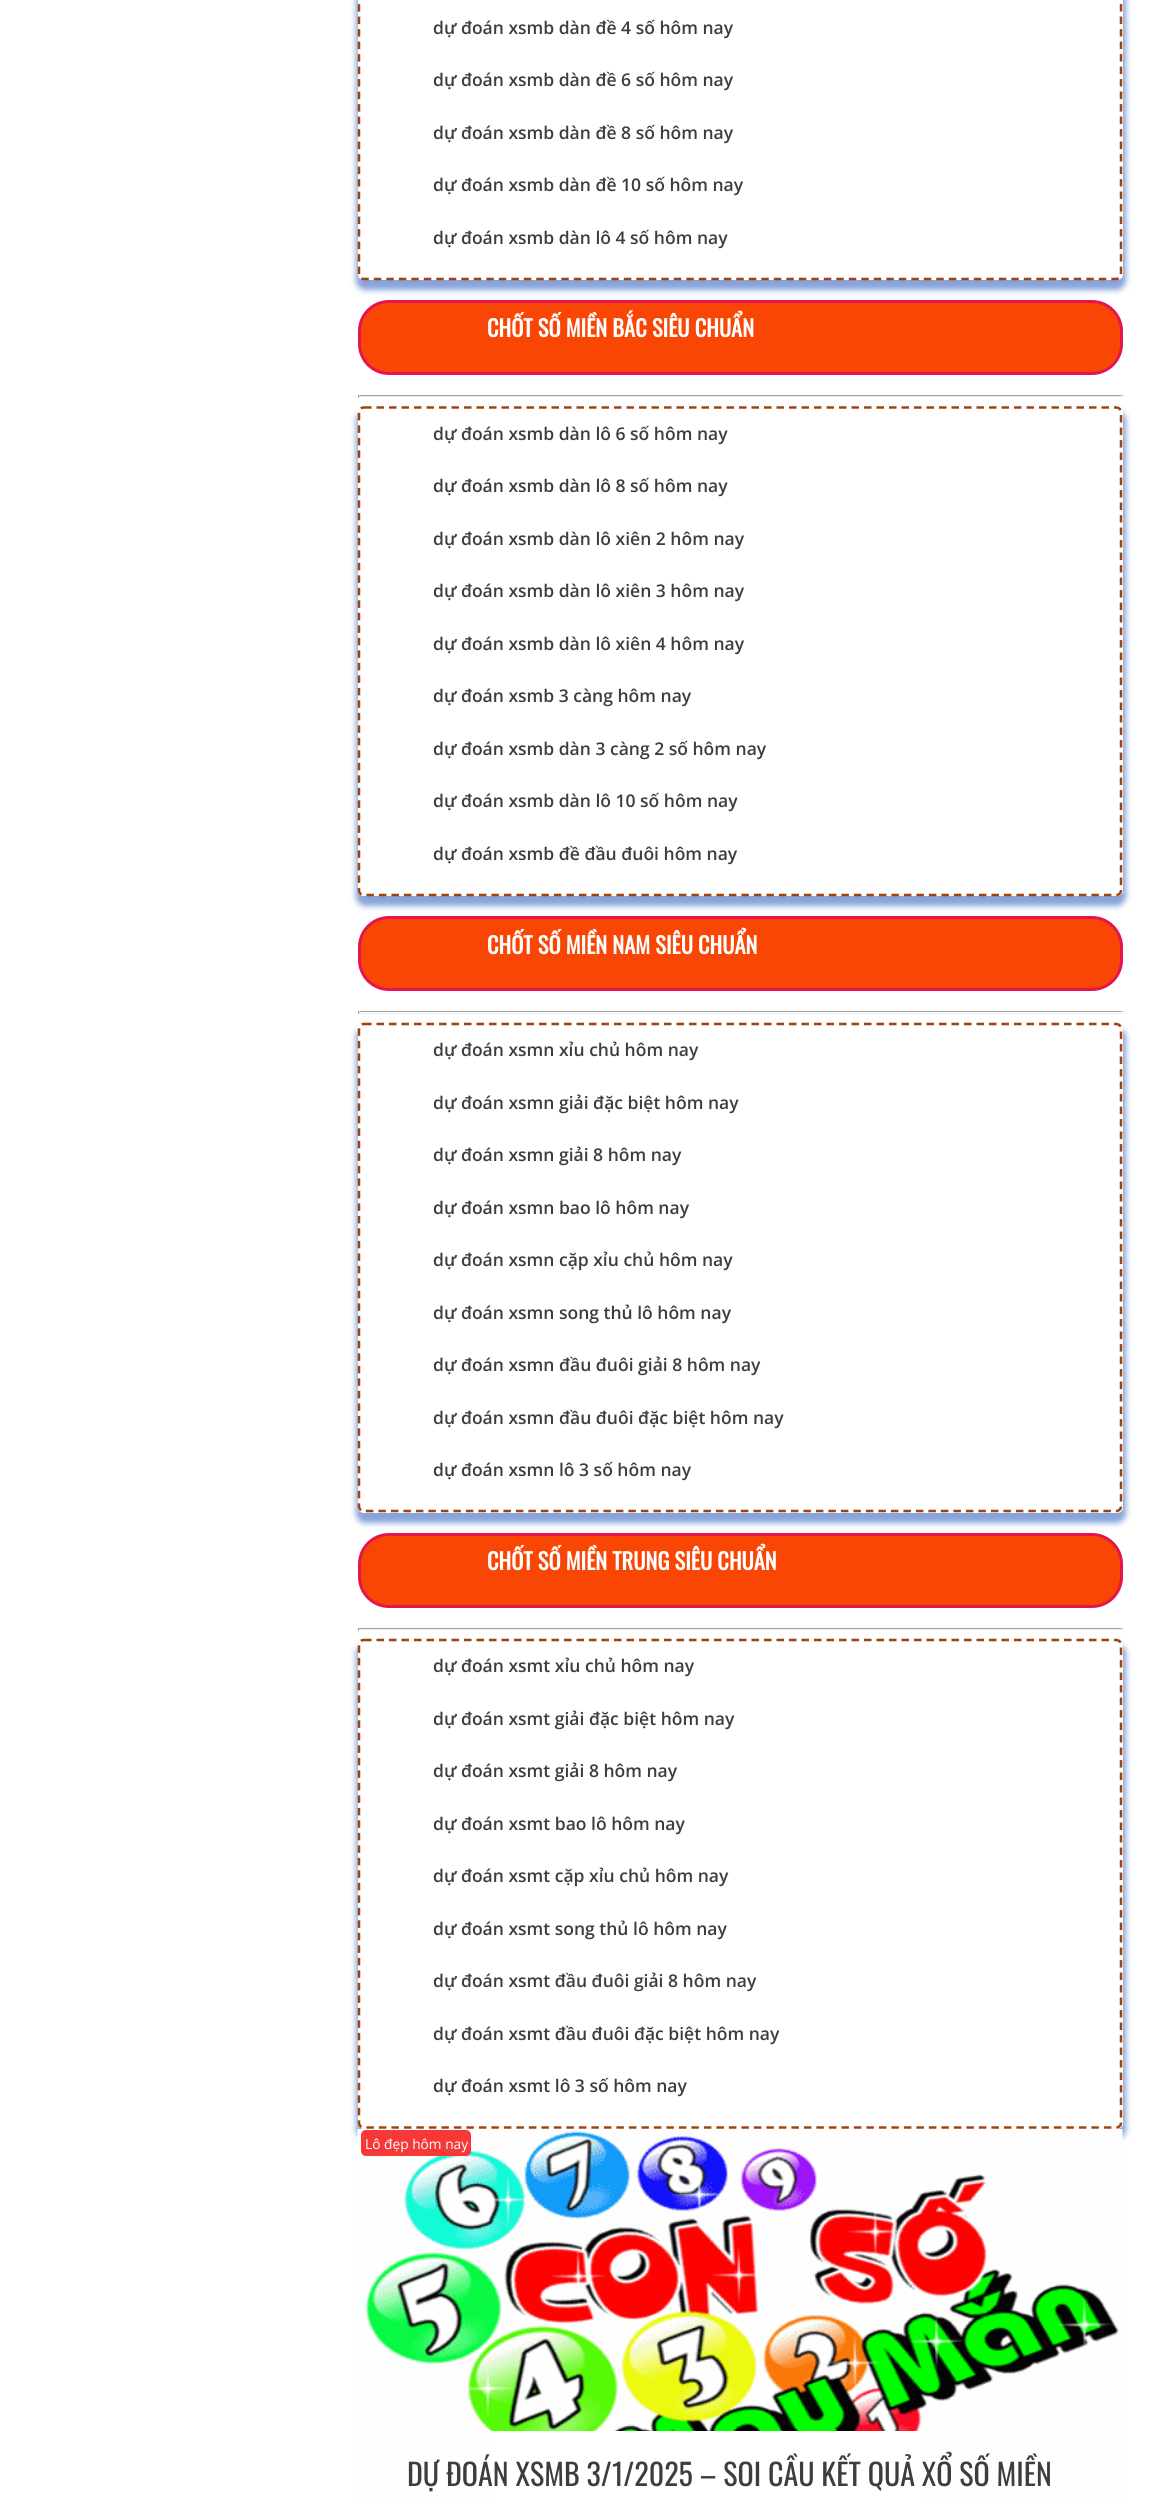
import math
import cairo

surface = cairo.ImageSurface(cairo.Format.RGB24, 1151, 2504)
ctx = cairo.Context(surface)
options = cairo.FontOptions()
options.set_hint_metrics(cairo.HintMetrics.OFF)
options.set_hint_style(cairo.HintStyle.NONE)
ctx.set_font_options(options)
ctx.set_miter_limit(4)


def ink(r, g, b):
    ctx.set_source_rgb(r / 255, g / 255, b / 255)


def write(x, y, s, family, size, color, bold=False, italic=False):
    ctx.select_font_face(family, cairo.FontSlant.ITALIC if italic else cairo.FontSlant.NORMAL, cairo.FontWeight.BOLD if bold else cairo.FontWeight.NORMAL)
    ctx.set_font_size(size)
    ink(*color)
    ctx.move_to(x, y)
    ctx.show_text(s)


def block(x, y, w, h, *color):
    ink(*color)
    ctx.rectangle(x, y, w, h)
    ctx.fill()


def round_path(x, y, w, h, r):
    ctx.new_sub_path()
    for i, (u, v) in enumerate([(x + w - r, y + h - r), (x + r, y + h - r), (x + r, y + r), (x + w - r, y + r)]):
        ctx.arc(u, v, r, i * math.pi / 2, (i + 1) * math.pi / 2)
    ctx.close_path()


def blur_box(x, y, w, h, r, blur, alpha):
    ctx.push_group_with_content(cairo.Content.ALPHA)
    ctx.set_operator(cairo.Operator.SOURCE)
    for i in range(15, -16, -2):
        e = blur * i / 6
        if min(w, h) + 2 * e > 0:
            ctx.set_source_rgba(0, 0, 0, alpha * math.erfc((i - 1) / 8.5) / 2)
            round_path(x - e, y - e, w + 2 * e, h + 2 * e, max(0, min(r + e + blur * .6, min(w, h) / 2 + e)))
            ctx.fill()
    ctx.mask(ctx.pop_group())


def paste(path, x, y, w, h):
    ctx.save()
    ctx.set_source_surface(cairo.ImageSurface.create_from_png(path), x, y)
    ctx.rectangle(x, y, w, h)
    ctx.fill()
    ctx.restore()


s1 = dict(family="Open Sans SemiBold", size=17.5, color=(61, 61, 61))
s2 = dict(family="Oswald", size=22.5, color=(255, 255, 255), bold=True)
s3 = dict(family="Open Sans", size=13.75, color=(255, 255, 255))
s4 = dict(family="Oswald", size=30, color=(61, 61, 61))

ink(255, 255, 255)
ctx.paint()
ctx.save()
ctx.set_fill_rule(cairo.FillRule.EVEN_ODD)
ctx.new_path()
ctx.move_to(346, 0)
ctx.line_to(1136, 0)
ctx.line_to(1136, 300)
ctx.line_to(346, 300)
ctx.close_path()
ctx.move_to(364, -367)
ctx.line_to(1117, -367)
ctx.curve_to(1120.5, -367, 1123, -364.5, 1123, -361)
ctx.line_to(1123, 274)
ctx.curve_to(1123, 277.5, 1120.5, 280, 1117, 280)
ctx.line_to(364, 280)
ctx.curve_to(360.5, 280, 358, 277.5, 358, 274)
ctx.line_to(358, -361)
ctx.curve_to(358, -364.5, 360.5, -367, 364, -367)
ctx.close_path()
ctx.clip()
ink(135, 163, 219)
blur_box(356, -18, 770, 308, 9, 3, 1)
ctx.restore()
ctx.new_path()
ctx.move_to(364, -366)
ctx.line_to(1116, -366)
ctx.curve_to(1119, -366, 1121, -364, 1121, -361)
ctx.line_to(1121, 274)
ctx.curve_to(1121, 276.5, 1119, 279, 1116, 279)
ctx.line_to(364, 279)
ctx.curve_to(361, 279, 359, 276.5, 359, 274)
ctx.line_to(359, -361)
ctx.curve_to(359, -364, 361, -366, 364, -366)
ctx.close_path()
ink(160, 66, 11)
ctx.set_line_width(2.5)
ctx.set_dash([7.5, 5])
ctx.stroke()
write(433, 34, "dự đoán xsmb dàn đề 4 số hôm nay", **s1)
write(433, 86, "dự đoán xsmb dàn đề 6 số hôm nay", **s1)
write(433, 139, "dự đoán xsmb dàn đề 8 số hôm nay", **s1)
write(433, 191, "dự đoán xsmb dàn đề 10 số hôm nay", **s1)
write(433, 244, "dự đoán xsmb dàn lô 4 số hôm nay", **s1)
ink(249, 70, 4)
round_path(359.5, 301.5, 762, 72, 29.5)
ctx.fill_preserve()
ink(228, 20, 77)
ctx.set_line_width(3)
ctx.set_dash([])
ctx.stroke()
write(487, 337, "CHỐT SỐ MIỀN BẮC SIÊU CHUẨN", **s2)
block(358, 395, 765, 1, 159, 159, 159)
block(1121, 395, 1, 3, 238, 238, 238)
block(358, 396, 765, 1, 238, 238, 238)
block(358, 395, 1, 3, 159, 159, 159)
ctx.save()
ctx.set_fill_rule(cairo.FillRule.EVEN_ODD)
ctx.new_path()
ctx.move_to(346, 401)
ctx.line_to(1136, 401)
ctx.line_to(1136, 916)
ctx.line_to(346, 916)
ctx.close_path()
ctx.move_to(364, 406)
ctx.line_to(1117, 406)
ctx.curve_to(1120.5, 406, 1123, 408.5, 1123, 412)
ctx.line_to(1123, 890)
ctx.curve_to(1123, 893.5, 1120.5, 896, 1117, 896)
ctx.line_to(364, 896)
ctx.curve_to(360.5, 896, 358, 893.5, 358, 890)
ctx.line_to(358, 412)
ctx.curve_to(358, 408.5, 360.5, 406, 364, 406)
ctx.close_path()
ctx.clip()
ink(135, 163, 219)
blur_box(356, 411, 770, 495, 9, 3, 1)
ctx.restore()
ctx.new_path()
ctx.move_to(364, 407.5)
ctx.line_to(1116, 407.5)
ctx.curve_to(1119, 407.5, 1121, 409.5, 1121, 412.5)
ctx.line_to(1121, 890)
ctx.curve_to(1121, 893, 1119, 895, 1116, 895)
ctx.line_to(364, 895)
ctx.curve_to(361, 895, 359, 893, 359, 890)
ctx.line_to(359, 412.5)
ctx.curve_to(359, 409.5, 361, 407.5, 364, 407.5)
ctx.close_path()
ink(160, 66, 11)
ctx.set_line_width(2.5)
ctx.set_dash([7.5, 5])
ctx.stroke()
write(433, 440, "dự đoán xsmb dàn lô 6 số hôm nay", **s1)
write(433, 492, "dự đoán xsmb dàn lô 8 số hôm nay", **s1)
write(433, 545, "dự đoán xsmb dàn lô xiên 2 hôm nay", **s1)
write(433, 597, "dự đoán xsmb dàn lô xiên 3 hôm nay", **s1)
write(433, 650, "dự đoán xsmb dàn lô xiên 4 hôm nay", **s1)
write(433, 702, "dự đoán xsmb 3 càng hôm nay", **s1)
write(433, 755, "dự đoán xsmb dàn 3 càng 2 số hôm nay", **s1)
write(433, 807, "dự đoán xsmb dàn lô 10 số hôm nay", **s1)
write(433, 860, "dự đoán xsmb đề đầu đuôi hôm nay", **s1)
ink(249, 70, 4)
round_path(359.5, 917.5, 762, 72, 29.5)
ctx.fill_preserve()
ink(228, 20, 77)
ctx.set_line_width(3)
ctx.set_dash([])
ctx.stroke()
write(487, 954, "CHỐT SỐ MIỀN NAM SIÊU CHUẨN", **s2)
block(358, 1011, 765, 1, 159, 159, 159)
block(1121, 1011, 1, 3, 238, 238, 238)
block(358, 1013, 765, 1, 238, 238, 238)
block(358, 1011, 1, 3, 159, 159, 159)
ctx.save()
ctx.set_fill_rule(cairo.FillRule.EVEN_ODD)
ctx.new_path()
ctx.move_to(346, 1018)
ctx.line_to(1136, 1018)
ctx.line_to(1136, 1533)
ctx.line_to(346, 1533)
ctx.close_path()
ctx.move_to(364, 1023)
ctx.line_to(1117, 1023)
ctx.curve_to(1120.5, 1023, 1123, 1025.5, 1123, 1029)
ctx.line_to(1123, 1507)
ctx.curve_to(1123, 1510.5, 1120.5, 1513, 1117, 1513)
ctx.line_to(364, 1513)
ctx.curve_to(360.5, 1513, 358, 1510.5, 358, 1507)
ctx.line_to(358, 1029)
ctx.curve_to(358, 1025.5, 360.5, 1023, 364, 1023)
ctx.close_path()
ctx.clip()
ink(135, 163, 219)
blur_box(356, 1028, 770, 495, 9, 3, 1)
ctx.restore()
ctx.new_path()
ctx.move_to(364, 1024)
ctx.line_to(1116, 1024)
ctx.curve_to(1119, 1024, 1121, 1026, 1121, 1029)
ctx.line_to(1121, 1506)
ctx.curve_to(1121, 1509, 1119, 1511, 1116, 1511)
ctx.line_to(364, 1511)
ctx.curve_to(361, 1511, 359, 1509, 359, 1506)
ctx.line_to(359, 1029)
ctx.curve_to(359, 1026, 361, 1024, 364, 1024)
ctx.close_path()
ink(160, 66, 11)
ctx.set_line_width(2.5)
ctx.set_dash([7.5, 5])
ctx.stroke()
write(433, 1056, "dự đoán xsmn xỉu chủ hôm nay", **s1)
write(433, 1109, "dự đoán xsmn giải đặc biệt hôm nay", **s1)
write(433, 1161, "dự đoán xsmn giải 8 hôm nay", **s1)
write(433, 1214, "dự đoán xsmn bao lô hôm nay", **s1)
write(433, 1266, "dự đoán xsmn cặp xỉu chủ hôm nay", **s1)
write(433, 1319, "dự đoán xsmn song thủ lô hôm nay", **s1)
write(433, 1371, "dự đoán xsmn đầu đuôi giải 8 hôm nay", **s1)
write(433, 1424, "dự đoán xsmn đầu đuôi đặc biệt hôm nay", **s1)
write(433, 1476, "dự đoán xsmn lô 3 số hôm nay", **s1)
ink(249, 70, 4)
round_path(359.5, 1534.5, 762, 72, 29.5)
ctx.fill_preserve()
ink(228, 20, 77)
ctx.set_line_width(3)
ctx.set_dash([])
ctx.stroke()
write(487, 1570, "CHỐT SỐ MIỀN TRUNG SIÊU CHUẨN", **s2)
block(358, 1628, 765, 1, 159, 159, 159)
block(1121, 1628, 1, 3, 238, 238, 238)
block(358, 1629, 765, 1, 238, 238, 238)
block(358, 1628, 1, 3, 159, 159, 159)
ctx.save()
ctx.set_fill_rule(cairo.FillRule.EVEN_ODD)
ctx.new_path()
ctx.move_to(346, 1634)
ctx.line_to(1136, 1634)
ctx.line_to(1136, 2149)
ctx.line_to(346, 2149)
ctx.close_path()
ctx.move_to(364, 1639)
ctx.line_to(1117, 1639)
ctx.curve_to(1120.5, 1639, 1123, 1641.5, 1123, 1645)
ctx.line_to(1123, 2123)
ctx.curve_to(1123, 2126.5, 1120.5, 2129, 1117, 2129)
ctx.line_to(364, 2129)
ctx.curve_to(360.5, 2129, 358, 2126.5, 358, 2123)
ctx.line_to(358, 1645)
ctx.curve_to(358, 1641.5, 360.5, 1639, 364, 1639)
ctx.close_path()
ctx.clip()
ink(135, 163, 219)
blur_box(356, 1644, 770, 495, 9, 3, 1)
ctx.restore()
ctx.new_path()
ctx.move_to(364, 1640)
ctx.line_to(1116, 1640)
ctx.curve_to(1119, 1640, 1121, 1642, 1121, 1645)
ctx.line_to(1121, 2122.5)
ctx.curve_to(1121, 2125.5, 1119, 2127.5, 1116, 2127.5)
ctx.line_to(364, 2127.5)
ctx.curve_to(361, 2127.5, 359, 2125.5, 359, 2122.5)
ctx.line_to(359, 1645)
ctx.curve_to(359, 1642, 361, 1640, 364, 1640)
ctx.close_path()
ink(160, 66, 11)
ctx.set_line_width(2.5)
ctx.set_dash([7.5, 5])
ctx.stroke()
write(433, 1672, "dự đoán xsmt xỉu chủ hôm nay", **s1)
write(433, 1725, "dự đoán xsmt giải đặc biệt hôm nay", **s1)
write(433, 1777, "dự đoán xsmt giải 8 hôm nay", **s1)
write(433, 1830, "dự đoán xsmt bao lô hôm nay", **s1)
write(433, 1882, "dự đoán xsmt cặp xỉu chủ hôm nay", **s1)
write(433, 1935, "dự đoán xsmt song thủ lô hôm nay", **s1)
write(433, 1987, "dự đoán xsmt đầu đuôi giải 8 hôm nay", **s1)
write(433, 2040, "dự đoán xsmt đầu đuôi đặc biệt hôm nay", **s1)
write(433, 2092, "dự đoán xsmt lô 3 số hôm nay", **s1)
paste("pic1.png", 357, 2129, 766, 375)
ink(247, 56, 56)
round_path(361, 2130, 110, 26, 5)
ctx.fill()
write(365, 2149, "Lô đẹp hôm nay", **s3)
block(490, 2431, 429, 73, 255, 255, 255)
write(407, 2486, "DỰ ĐOÁN XSMB 3/1/2025 – SOI CẦU KẾT QUẢ XỔ SỐ MIỀN", **s4)
surface.write_to_png("screenshot.png")
